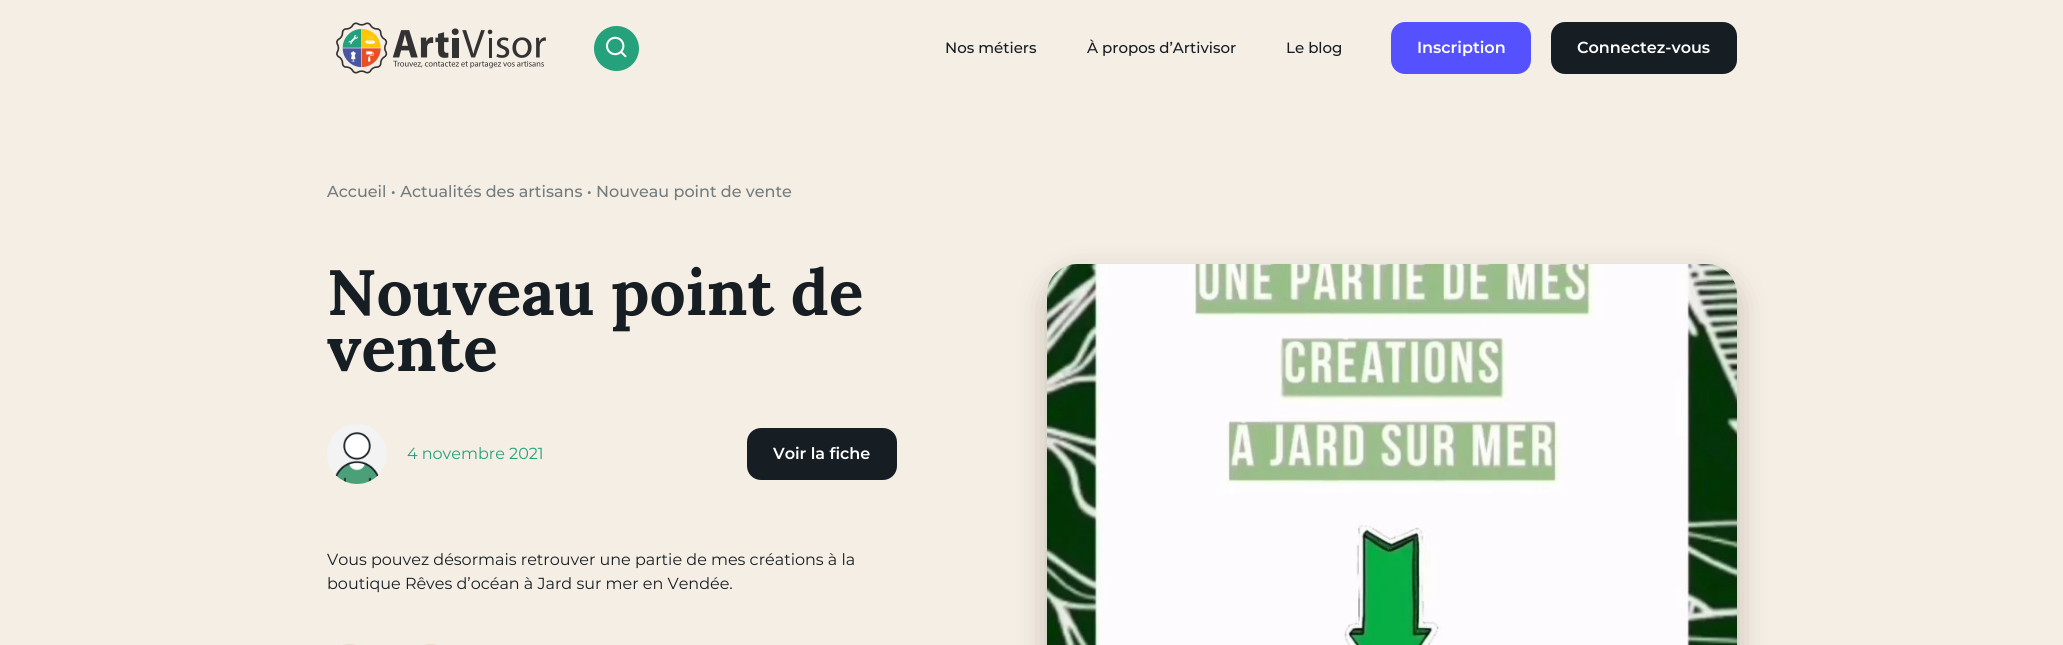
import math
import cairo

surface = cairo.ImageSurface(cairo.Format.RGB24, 2063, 645)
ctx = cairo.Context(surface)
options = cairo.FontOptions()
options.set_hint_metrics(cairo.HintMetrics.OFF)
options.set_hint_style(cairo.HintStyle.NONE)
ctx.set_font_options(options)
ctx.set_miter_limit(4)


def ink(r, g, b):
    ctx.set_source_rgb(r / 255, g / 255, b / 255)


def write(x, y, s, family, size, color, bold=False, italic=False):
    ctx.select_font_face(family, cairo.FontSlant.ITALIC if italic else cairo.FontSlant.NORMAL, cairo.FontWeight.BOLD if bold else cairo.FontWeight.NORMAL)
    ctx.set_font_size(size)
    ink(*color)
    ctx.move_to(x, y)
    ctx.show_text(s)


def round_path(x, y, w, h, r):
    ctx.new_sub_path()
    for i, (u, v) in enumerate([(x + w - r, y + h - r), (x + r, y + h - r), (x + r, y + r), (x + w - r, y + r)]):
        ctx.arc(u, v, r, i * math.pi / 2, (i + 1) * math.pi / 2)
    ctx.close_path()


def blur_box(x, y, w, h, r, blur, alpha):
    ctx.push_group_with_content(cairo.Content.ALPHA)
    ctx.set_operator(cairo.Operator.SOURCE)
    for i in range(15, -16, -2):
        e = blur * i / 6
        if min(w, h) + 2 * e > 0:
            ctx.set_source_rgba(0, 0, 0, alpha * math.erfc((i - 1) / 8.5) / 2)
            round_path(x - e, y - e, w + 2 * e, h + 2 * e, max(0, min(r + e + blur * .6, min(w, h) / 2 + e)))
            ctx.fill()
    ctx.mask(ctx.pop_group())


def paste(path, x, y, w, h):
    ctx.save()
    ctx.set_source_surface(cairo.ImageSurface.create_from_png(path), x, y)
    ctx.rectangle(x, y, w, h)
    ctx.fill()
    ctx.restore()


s1 = dict(family="Montserrat Medium", size=15, color=(22, 30, 36))
s2 = dict(family="Montserrat SemiBold", size=16, color=(255, 255, 255))
s3 = dict(family="Montserrat Medium", size=16, color=(115, 123, 125))
s4 = dict(family="Lora", size=64, color=(22, 30, 36), bold=True)
s5 = dict(family="Montserrat", size=16, color=(37, 161, 124))
s6 = dict(family="Montserrat", size=16, color=(22, 30, 36))

ink(245, 238, 228)
ctx.paint()
paste("pic1.png", 336, 22, 210, 52)
ink(37, 161, 124)
ctx.arc(616.5, 48.5, 22.5, 0, 2 * math.pi)
ctx.fill()
paste("pic2.png", 606, 36, 21, 22)
write(945, 53, "Nos métiers", **s1)
write(1087, 53, "À propos d’Artivisor", **s1)
write(1286, 53, "Le blog", **s1)
ink(85, 81, 255)
round_path(1392, 23, 138, 50, 13)
ctx.fill_preserve()
ctx.stroke()
write(1417, 53, "Inscription", **s2)
ink(22, 30, 36)
round_path(1552, 23, 184, 50, 13)
ctx.fill_preserve()
ctx.stroke()
write(1577, 53, "Connectez-vous", **s2)
write(327, 197, "Accueil • Actualités des artisans • Nouveau point de vente", **s3)
write(327, 315, "Nouveau point de", **s4)
write(327, 371, "vente", **s4)
paste("pic3.png", 327, 424, 60, 60)
write(407, 459, "4 novembre 2021", **s5)
ink(22, 30, 36)
round_path(748, 429, 148, 50, 13)
ctx.fill_preserve()
ctx.stroke()
write(773, 459, "Voir la fiche", **s2)
write(327, 565, "Vous pouvez désormais retrouver une partie de mes créations à la", **s6)
write(327, 589, "boutique Rêves d’océan à Jard sur mer en Vendée.", **s6)
round_path(328, 645, 43, 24, 21.5)
ink(234, 220, 202)
ctx.stroke()
round_path(409, 645, 43, 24, 21.5)
ctx.stroke()
ink(74, 70, 58)
blur_box(1047, 276, 690, 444, 30, 15, 0.3)
paste("pic4.png", 1047, 264, 690, 381)
surface.write_to_png("screenshot.png")
